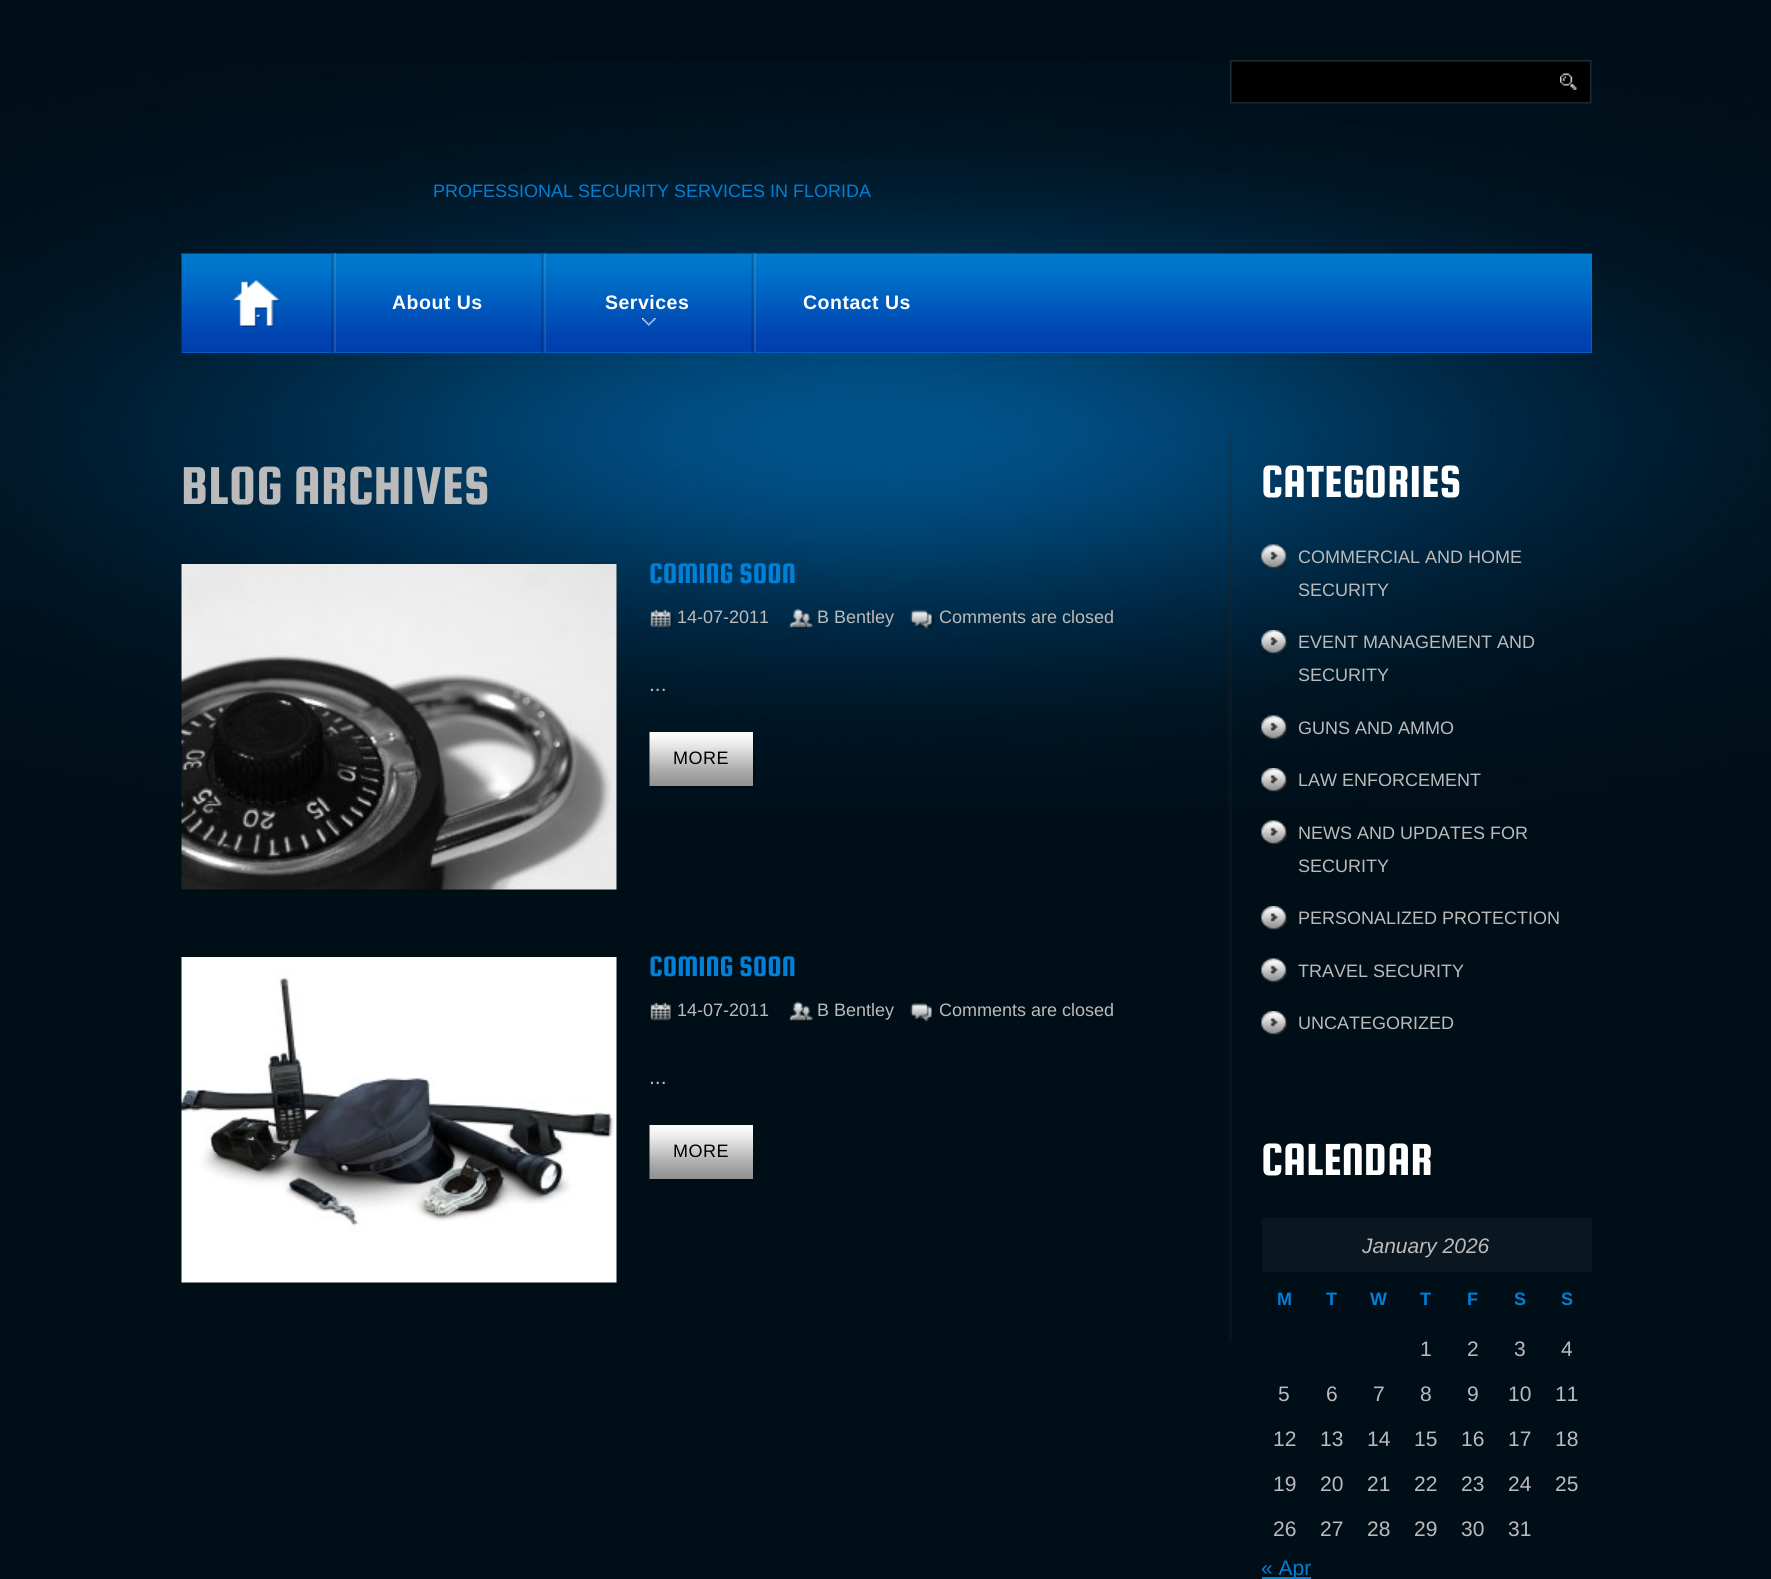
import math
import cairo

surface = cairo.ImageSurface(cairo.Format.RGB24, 1771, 1579)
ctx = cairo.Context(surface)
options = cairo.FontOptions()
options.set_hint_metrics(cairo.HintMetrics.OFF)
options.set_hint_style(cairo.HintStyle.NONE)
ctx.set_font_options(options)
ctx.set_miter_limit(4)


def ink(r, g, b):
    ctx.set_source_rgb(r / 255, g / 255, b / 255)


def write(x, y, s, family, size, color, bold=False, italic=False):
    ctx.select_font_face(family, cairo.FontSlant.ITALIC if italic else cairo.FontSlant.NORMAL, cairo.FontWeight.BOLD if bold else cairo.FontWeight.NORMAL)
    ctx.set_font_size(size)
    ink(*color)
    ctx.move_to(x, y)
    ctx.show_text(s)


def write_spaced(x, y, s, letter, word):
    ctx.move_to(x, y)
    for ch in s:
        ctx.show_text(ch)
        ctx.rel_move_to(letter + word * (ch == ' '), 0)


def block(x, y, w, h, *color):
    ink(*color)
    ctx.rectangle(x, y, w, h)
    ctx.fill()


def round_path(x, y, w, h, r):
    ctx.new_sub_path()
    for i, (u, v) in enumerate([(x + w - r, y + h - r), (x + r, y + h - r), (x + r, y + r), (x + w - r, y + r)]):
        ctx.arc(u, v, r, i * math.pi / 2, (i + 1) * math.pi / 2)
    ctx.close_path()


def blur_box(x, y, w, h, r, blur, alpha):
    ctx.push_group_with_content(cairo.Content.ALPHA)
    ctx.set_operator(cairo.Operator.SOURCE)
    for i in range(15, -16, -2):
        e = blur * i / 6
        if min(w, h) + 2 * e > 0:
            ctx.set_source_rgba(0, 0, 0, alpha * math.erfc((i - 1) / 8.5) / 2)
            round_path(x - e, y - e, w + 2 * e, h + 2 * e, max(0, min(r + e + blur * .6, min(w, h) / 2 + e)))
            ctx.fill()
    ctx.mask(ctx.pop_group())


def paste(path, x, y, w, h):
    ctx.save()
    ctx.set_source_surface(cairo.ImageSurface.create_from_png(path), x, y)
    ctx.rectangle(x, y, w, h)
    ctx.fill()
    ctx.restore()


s1 = dict(family="Liberation Sans", size=18, color=(0, 128, 215))
s2 = dict(family="Squada One", size=57, color=(187, 187, 187))
s3 = dict(family="Squada One", size=30, color=(0, 128, 215))
s4 = dict(family="Liberation Sans", size=18, color=(187, 187, 187))
s5 = dict(family="Liberation Sans", size=21, color=(187, 187, 187))
s6 = dict(family="Squada One", size=48, color=(255, 255, 255))
s7 = dict(family="Liberation Sans", size=21, color=(187, 187, 187), italic=True)
s8 = dict(family="Liberation Sans", size=18, color=(0, 128, 215), bold=True)
s9 = dict(family="Liberation Sans", size=21, color=(0, 128, 215))

ink(0, 14, 24)
ctx.paint()
paste("pic1.png", 0, 61, 1771, 747)
paste("pic2.png", 1230, 60, 362, 44)
paste("pic3.png", 1560, 73, 17, 17)
write(433, 197, "PROFESSIONAL SECURITY SERVICES IN FLORIDA", **s1)
block(182, 254, 1410, 99, 0, 128, 215)
paste("pic4.png", 181, 253, 1411, 100)
paste("pic5.png", 232, 280, 49, 47)
paste("pic6.png", 331, 253, 5, 100)
ctx.select_font_face("Liberation Sans", cairo.FontSlant.NORMAL, cairo.FontWeight.BOLD)
ctx.set_font_size(19.5)
ink(255, 255, 255)
write_spaced(392, 309, "About Us", 0.5, 0)
paste("pic7.png", 541, 253, 5, 100)
write_spaced(605, 309, "Services", 0.5, 0)
paste("pic8.png", 642, 318, 14, 8)
paste("pic9.png", 751, 253, 5, 100)
write_spaced(803, 309, "Contact Us", 0.5, 0)
paste("pic10.png", 1228, 433, 4, 910)
write(181, 504, "BLOG ARCHIVES", **s2)
ink(0, 0, 0)
blur_box(182, 564, 435, 326, 0, 1.5, 0.2)
paste("pic11.png", 181, 564, 436, 326)
write(649, 583, "COMING SOON", **s3)
paste("pic12.png", 650, 609, 24, 20)
write(677, 623, "14-07-2011", **s4)
paste("pic13.png", 789, 608, 26, 21)
write(817, 623, "B Bentley", **s4)
paste("pic14.png", 910, 610, 26, 19)
write(939, 623, "Comments are closed", **s4)
write(649, 691, "...", **s5)
ink(0, 0, 0)
blur_box(651, 734, 104, 54, 0, 1, 0.3)
paste("pic15.png", 649, 732, 104, 54)
ctx.set_font_size(18)
ink(0, 0, 0)
write_spaced(673, 764, "MORE", 0.5, 0)
paste("pic16.png", 181, 957, 436, 326)
write(649, 976, "COMING SOON", **s3)
paste("pic17.png", 650, 1002, 23, 19)
write(677, 1016, "14-07-2011", **s4)
paste("pic18.png", 789, 1001, 25, 21)
write(817, 1016, "B Bentley", **s4)
paste("pic19.png", 910, 1003, 24, 19)
write(939, 1016, "Comments are closed", **s4)
write(649, 1084, "...", **s5)
paste("pic20.png", 649, 1125, 104, 54)
ctx.set_font_size(18)
ink(0, 0, 0)
write_spaced(673, 1157, "MORE", 0.5, 0)
write(1261, 497, "CATEGORIES", **s6)
paste("pic21.png", 1261, 544, 26, 25)
write(1298, 563, "COMMERCIAL AND HOME", **s4)
write(1298, 596, "SECURITY", **s4)
paste("pic22.png", 1261, 630, 26, 24)
write(1298, 648, "EVENT MANAGEMENT AND", **s4)
write(1298, 681, "SECURITY", **s4)
paste("pic23.png", 1261, 715, 26, 25)
write(1298, 734, "GUNS AND AMMO", **s4)
paste("pic24.png", 1261, 768, 26, 24)
write(1298, 786, "LAW ENFORCEMENT", **s4)
paste("pic25.png", 1261, 820, 26, 25)
write(1298, 839, "NEWS AND UPDATES FOR", **s4)
write(1298, 872, "SECURITY", **s4)
paste("pic26.png", 1261, 906, 26, 24)
write(1298, 924, "PERSONALIZED PROTECTION", **s4)
paste("pic25.png", 1261, 958, 26, 25)
write(1298, 977, "TRAVEL SECURITY", **s4)
paste("pic26.png", 1261, 1011, 26, 24)
write(1298, 1029, "UNCATEGORIZED", **s4)
write(1261, 1175, "CALENDAR", **s6)
block(1262, 1218, 330, 54, 10, 23, 33)
write(1362, 1253, "January 2026", **s7)
write(1277, 1305, "M", **s8)
write(1326, 1305, "T", **s8)
write(1370, 1305, "W", **s8)
write(1420, 1305, "T", **s8)
write(1467, 1305, "F", **s8)
write(1514, 1305, "S", **s8)
write(1561, 1305, "S", **s8)
write(1420, 1356, "1", **s5)
write(1467, 1356, "2", **s5)
write(1514, 1356, "3", **s5)
write(1561, 1356, "4", **s5)
write(1278, 1401, "5", **s5)
write(1326, 1401, "6", **s5)
write(1373, 1401, "7", **s5)
write(1420, 1401, "8", **s5)
write(1467, 1401, "9", **s5)
write(1508, 1401, "10", **s5)
write(1555, 1401, "11", **s5)
write(1273, 1446, "12", **s5)
write(1320, 1446, "13", **s5)
write(1367, 1446, "14", **s5)
write(1414, 1446, "15", **s5)
write(1461, 1446, "16", **s5)
write(1508, 1446, "17", **s5)
write(1555, 1446, "18", **s5)
write(1273, 1491, "19", **s5)
write(1320, 1491, "20", **s5)
write(1367, 1491, "21", **s5)
write(1414, 1491, "22", **s5)
write(1461, 1491, "23", **s5)
write(1508, 1491, "24", **s5)
write(1555, 1491, "25", **s5)
write(1273, 1536, "26", **s5)
write(1320, 1536, "27", **s5)
write(1367, 1536, "28", **s5)
write(1414, 1536, "29", **s5)
write(1461, 1536, "30", **s5)
write(1508, 1536, "31", **s5)
block(1262, 1577, 49, 2, 0, 128, 215)
write(1261, 1575, "« Apr", **s9)
surface.write_to_png("screenshot.png")
